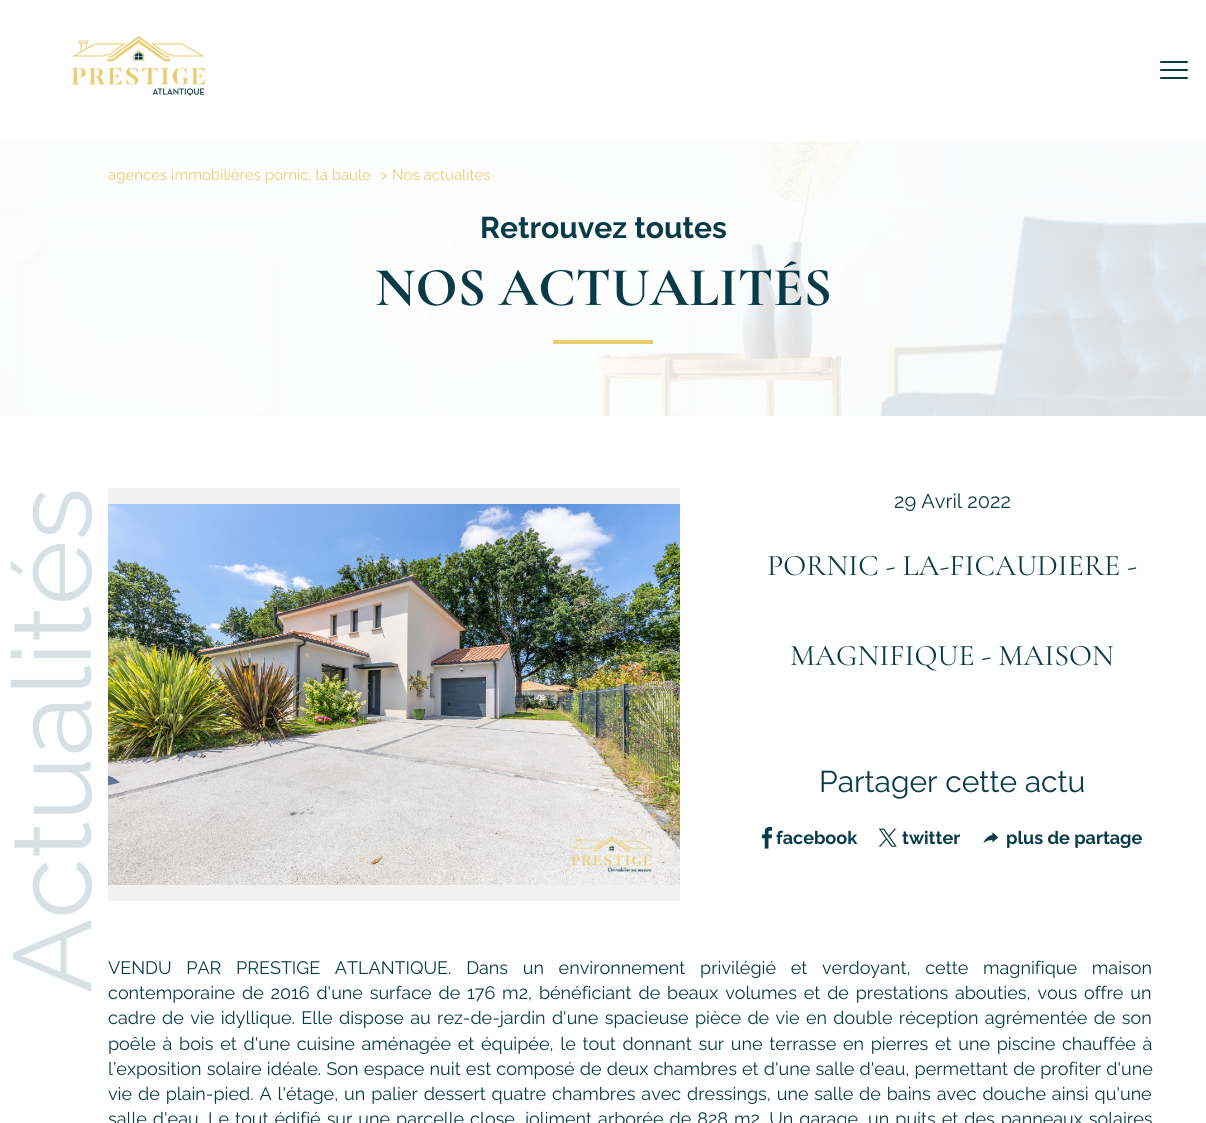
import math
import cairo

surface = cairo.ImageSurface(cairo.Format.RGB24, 1206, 1123)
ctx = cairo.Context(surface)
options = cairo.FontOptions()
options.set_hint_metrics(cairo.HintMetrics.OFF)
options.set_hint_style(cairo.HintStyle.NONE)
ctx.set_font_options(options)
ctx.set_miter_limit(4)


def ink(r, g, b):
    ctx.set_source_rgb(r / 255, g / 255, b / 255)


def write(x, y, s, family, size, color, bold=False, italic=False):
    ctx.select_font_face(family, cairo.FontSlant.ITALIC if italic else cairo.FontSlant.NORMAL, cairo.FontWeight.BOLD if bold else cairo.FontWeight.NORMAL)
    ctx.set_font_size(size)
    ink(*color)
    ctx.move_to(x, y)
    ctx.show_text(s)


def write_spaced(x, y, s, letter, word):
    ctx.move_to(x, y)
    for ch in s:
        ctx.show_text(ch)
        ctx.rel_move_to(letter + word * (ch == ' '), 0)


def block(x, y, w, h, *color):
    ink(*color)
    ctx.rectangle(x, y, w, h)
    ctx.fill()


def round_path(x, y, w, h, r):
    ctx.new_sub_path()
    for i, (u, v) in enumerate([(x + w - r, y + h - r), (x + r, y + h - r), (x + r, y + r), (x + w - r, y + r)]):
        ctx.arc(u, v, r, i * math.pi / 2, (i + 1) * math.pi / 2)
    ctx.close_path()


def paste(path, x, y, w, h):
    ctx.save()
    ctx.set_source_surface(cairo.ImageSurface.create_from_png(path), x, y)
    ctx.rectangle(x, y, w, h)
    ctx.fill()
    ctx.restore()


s1 = dict(family="Raleway Thin", size=15, color=(235, 204, 113))
s2 = dict(family="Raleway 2 Thin", size=30, color=(7, 59, 71))
s3 = dict(family="Cormorant Garamond Light", size=55, color=(7, 59, 71))
s4 = dict(family="Raleway Thin", size=110, color=(215, 224, 226))
s5 = dict(family="Raleway Thin", size=20, color=(7, 59, 71))
s6 = dict(family="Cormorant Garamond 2 Light", size=30, color=(7, 59, 71))
s7 = dict(family="Raleway Thin", size=30, color=(7, 59, 71))
s8 = dict(family="Raleway 2 Thin", size=18, color=(7, 59, 71))

ink(255, 255, 255)
ctx.paint()
paste("pic1.png", 72, 36, 133, 60)
ink(7, 59, 71)
round_path(1160, 69, 28, 2, 1)
ctx.fill()
round_path(1160, 61, 28, 2, 1)
ctx.fill()
round_path(1160, 77, 28, 2, 1)
ctx.fill()
paste("pic2.png", 0, 141, 1206, 275)
write(108, 180, "agences immobilières pornic, la baule", **s1)
write(380, 180, ">", **s1)
write(392, 180, "Nos actualites", **s1)
write(480, 238, "Retrouvez toutes", **s2)
write(375, 305, "NOS ACTUALITÉS", **s3)
block(553, 340, 100, 4, 235, 204, 113)
ctx.save()
ctx.translate(91, 993)
ctx.rotate(-90 * math.pi / 180)
write(0, 0, "Actualités", **s4)
ctx.restore()
block(108, 488, 572, 413, 241, 241, 241)
paste("pic3.png", 108, 504, 572, 381)
write(894, 508, "29 Avril 2022", **s5)
write(767, 575, "PORNIC - LA-FICAUDIERE -", **s6)
write(790, 665, "MAGNIFIQUE - MAISON", **s6)
write(819, 792, "Partager cette actu", **s7)
paste("pic4.png", 762, 827, 10, 22)
write(776, 844, "facebook", **s8)
paste("pic5.png", 878, 828, 19, 19)
write(902, 844, "twitter", **s8)
paste("pic6.png", 983, 832, 16, 12)
write(1006, 844, "plus de partage", **s8)
ctx.select_font_face("Raleway Thin")
write_spaced(108, 974, "VENDU PAR PRESTIGE ATLANTIQUE. Dans un environnement privilégié et verdoyant, cette magnifique maison", 0, 10.1)
write_spaced(108, 999, "contemporaine de 2016 d'une surface de 176 m2, bénéficiant de beaux volumes et de prestations abouties, vous offre un", 0, 2.25)
write_spaced(108, 1024, "cadre de vie idyllique. Elle dispose au rez-de-jardin d'une spacieuse pièce de vie en double réception agrémentée de son", 0, 1.75)
write_spaced(108, 1050, "poêle à bois et d'une cuisine aménagée et équipée, le tout donnant sur une terrasse en pierres et une piscine chauffée à", 0, 2.1)
write_spaced(108, 1075, "l’exposition solaire idéale. Son espace nuit est composé de deux chambres et d'une salle d'eau, permettant de profiter d'une", 0, 0.6)
write_spaced(108, 1100, "vie de plain-pied. A l'étage, un palier dessert quatre chambres avec dressings, une salle de bains avec douche ainsi qu'une", 0, 1.3)
write_spaced(108, 1125, "salle d'eau. Le tout édifié sur une parcelle close, joliment arborée de 828 m2. Un garage, un puits et des panneaux solaires", 0, 1.4)
surface.write_to_png("screenshot.png")
